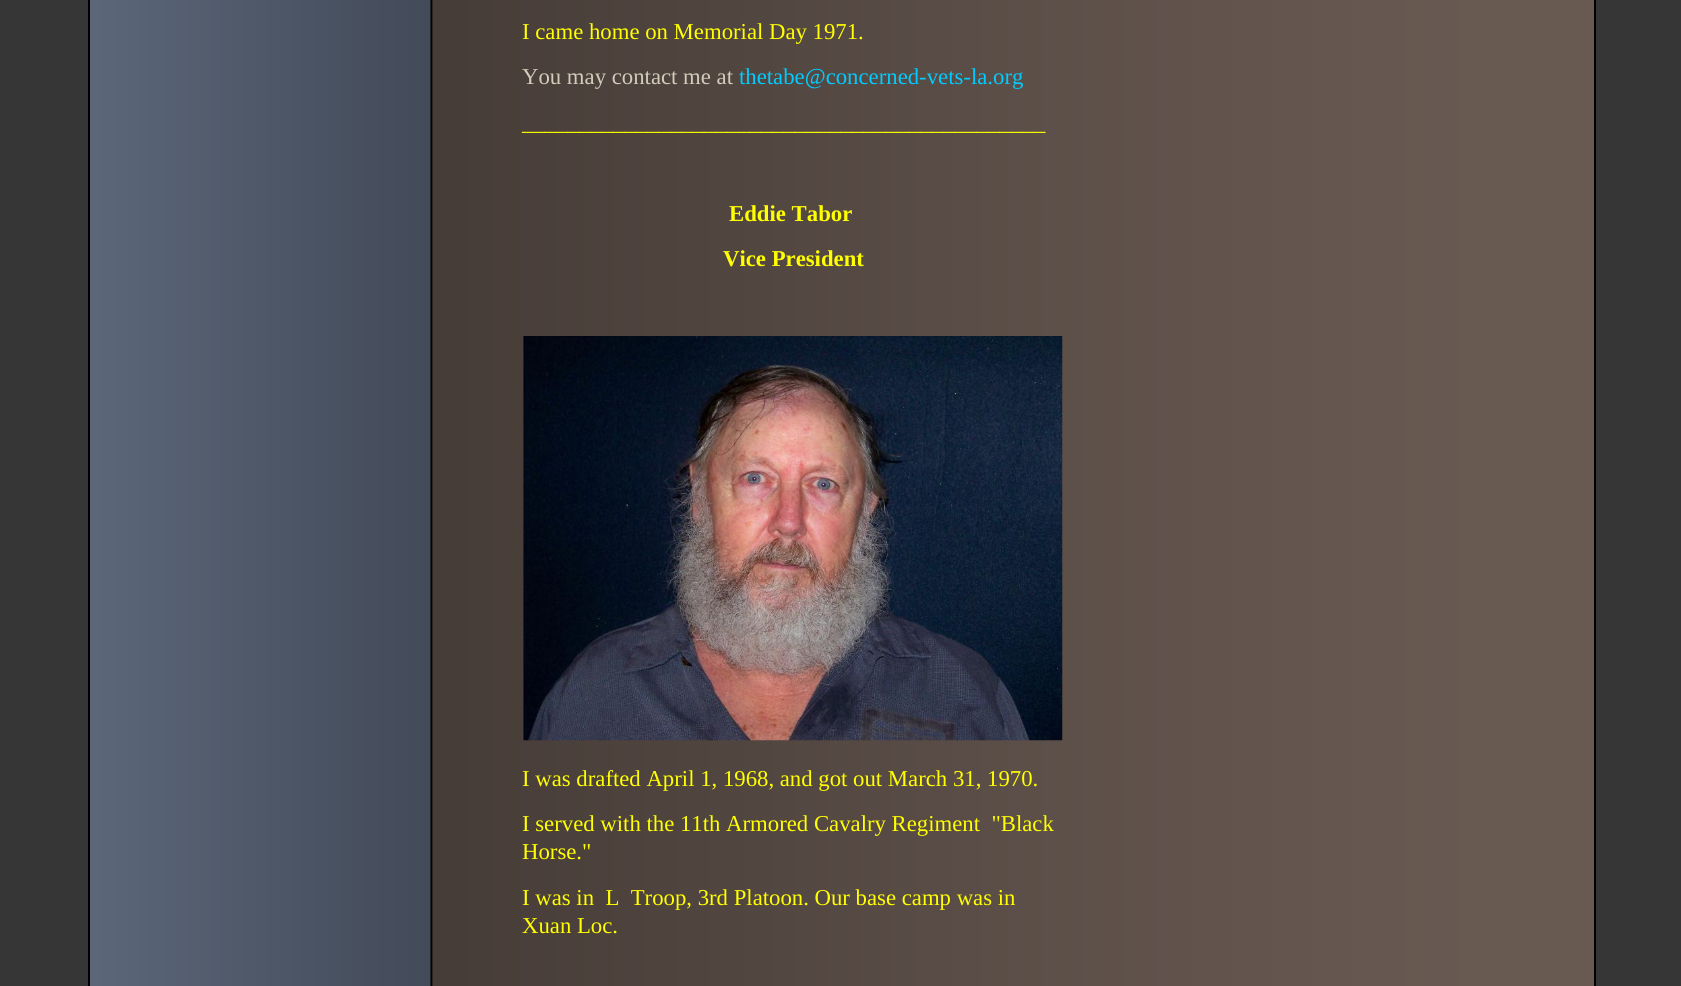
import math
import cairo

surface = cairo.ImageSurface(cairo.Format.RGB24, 1681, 986)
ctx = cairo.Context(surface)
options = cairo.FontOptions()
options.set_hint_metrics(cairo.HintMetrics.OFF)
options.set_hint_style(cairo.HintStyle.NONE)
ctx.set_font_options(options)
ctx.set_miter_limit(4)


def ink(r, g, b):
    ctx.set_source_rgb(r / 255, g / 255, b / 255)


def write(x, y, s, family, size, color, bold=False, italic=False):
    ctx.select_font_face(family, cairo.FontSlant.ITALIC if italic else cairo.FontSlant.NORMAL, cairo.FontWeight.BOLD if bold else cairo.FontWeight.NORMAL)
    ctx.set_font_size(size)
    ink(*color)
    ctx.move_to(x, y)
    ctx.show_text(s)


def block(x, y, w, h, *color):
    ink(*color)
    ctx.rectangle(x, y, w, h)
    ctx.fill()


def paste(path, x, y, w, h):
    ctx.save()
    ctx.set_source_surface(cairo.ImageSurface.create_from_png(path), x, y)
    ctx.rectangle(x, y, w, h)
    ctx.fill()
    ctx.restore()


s1 = dict(family="Liberation Serif", size=22.75, color=(255, 255, 0))
s2 = dict(family="Liberation Serif", size=22.75, color=(210, 204, 187))
s3 = dict(family="Liberation Serif", size=22.75, color=(0, 204, 255))
s4 = dict(family="Liberation Serif", size=22.75, color=(255, 255, 0), bold=True)

ink(54, 54, 54)
ctx.paint()
paste("pic1.png", 90, 0, 1504, 986)
block(1594, 0, 2, 986, 0, 0, 0)
block(88, 0, 2, 986, 0, 0, 0)
write(522, 39, "I came home on Memorial Day 1971.", **s1)
write(522, 84, "You may contact me at", **s2)
write(739, 84, "thetabe@concerned-vets-la.org", **s3)
write(522, 130, "______________________________________________", **s1)
write(729, 221, "Eddie Tabor", **s4)
write(723, 266, "Vice President", **s4)
paste("pic2.png", 523, 336, 540, 405)
write(522, 786, "I was drafted April 1, 1968, and got out March 31, 1970.", **s1)
write(522, 831, "I served with the 11th Armored Cavalry Regiment  \"Black", **s1)
write(522, 859, "Horse.\"", **s1)
write(522, 905, "I was in  L  Troop, 3rd Platoon. Our base camp was in", **s1)
write(522, 933, "Xuan Loc.", **s1)
surface.write_to_png("screenshot.png")
